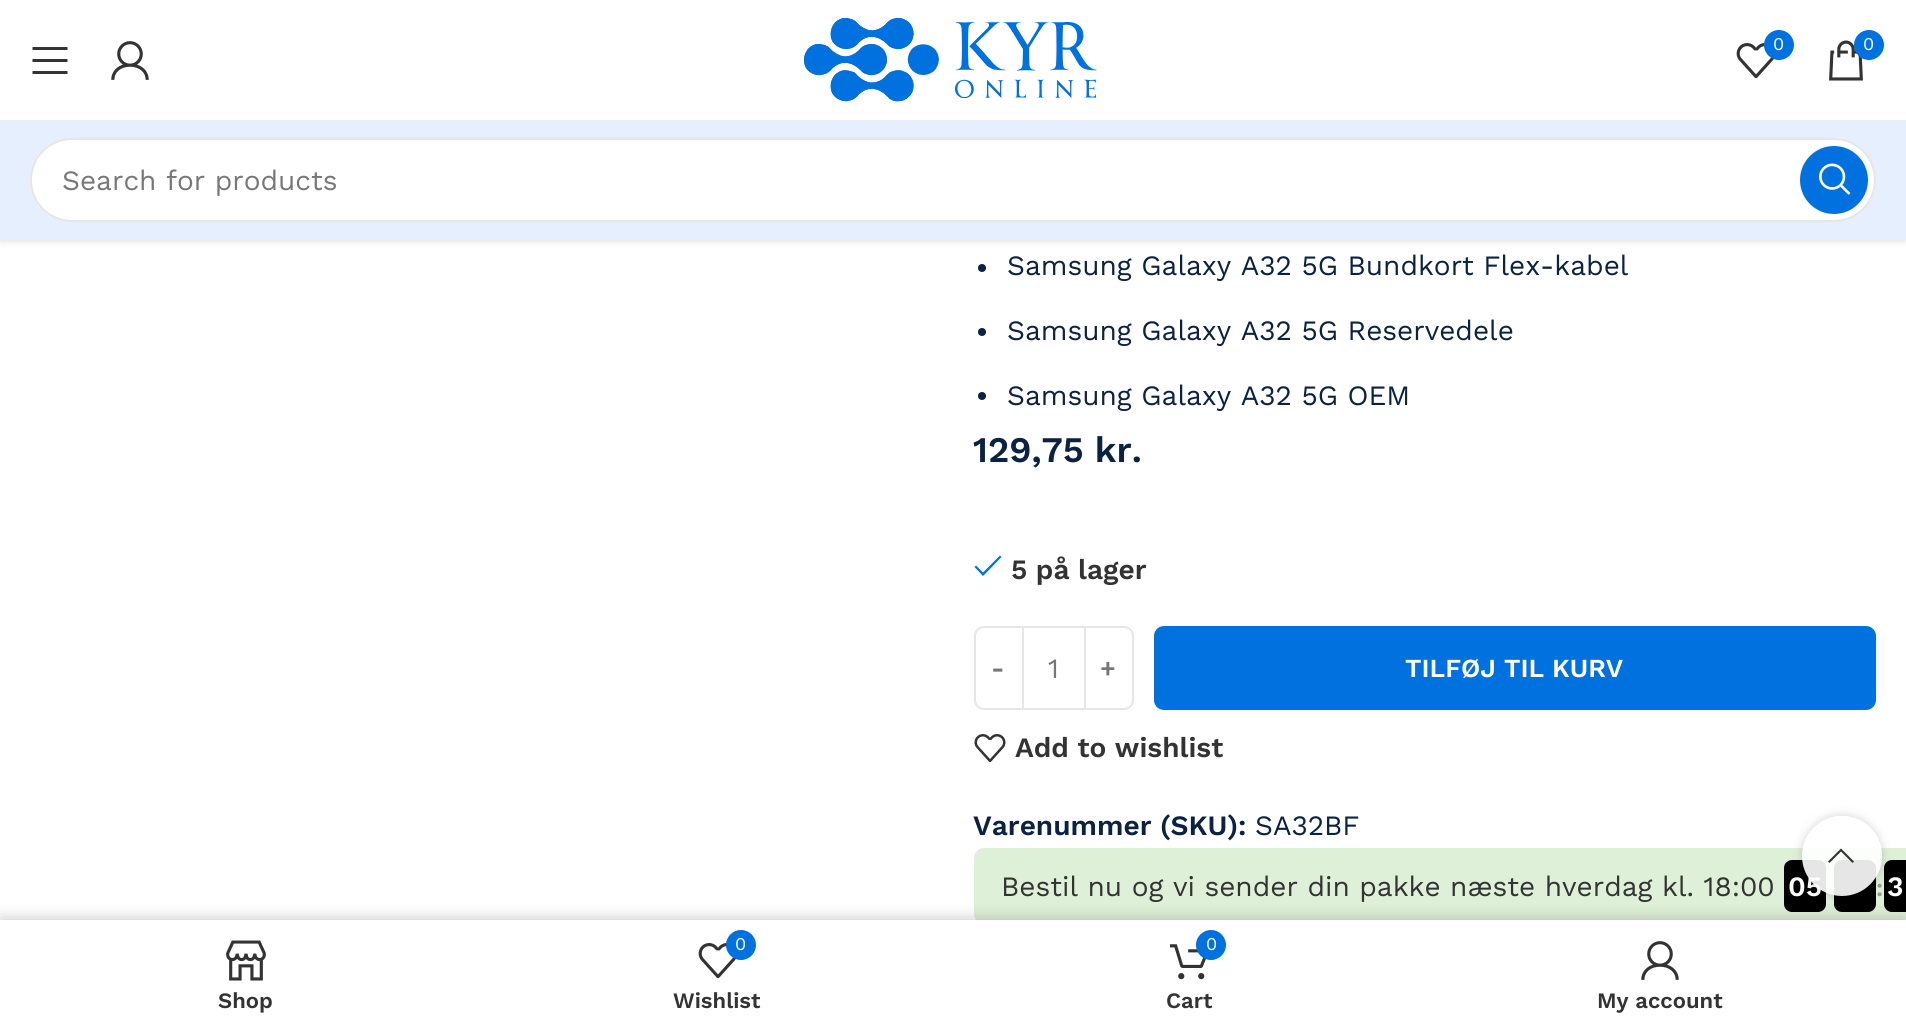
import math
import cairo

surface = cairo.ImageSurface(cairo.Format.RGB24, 1906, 1029)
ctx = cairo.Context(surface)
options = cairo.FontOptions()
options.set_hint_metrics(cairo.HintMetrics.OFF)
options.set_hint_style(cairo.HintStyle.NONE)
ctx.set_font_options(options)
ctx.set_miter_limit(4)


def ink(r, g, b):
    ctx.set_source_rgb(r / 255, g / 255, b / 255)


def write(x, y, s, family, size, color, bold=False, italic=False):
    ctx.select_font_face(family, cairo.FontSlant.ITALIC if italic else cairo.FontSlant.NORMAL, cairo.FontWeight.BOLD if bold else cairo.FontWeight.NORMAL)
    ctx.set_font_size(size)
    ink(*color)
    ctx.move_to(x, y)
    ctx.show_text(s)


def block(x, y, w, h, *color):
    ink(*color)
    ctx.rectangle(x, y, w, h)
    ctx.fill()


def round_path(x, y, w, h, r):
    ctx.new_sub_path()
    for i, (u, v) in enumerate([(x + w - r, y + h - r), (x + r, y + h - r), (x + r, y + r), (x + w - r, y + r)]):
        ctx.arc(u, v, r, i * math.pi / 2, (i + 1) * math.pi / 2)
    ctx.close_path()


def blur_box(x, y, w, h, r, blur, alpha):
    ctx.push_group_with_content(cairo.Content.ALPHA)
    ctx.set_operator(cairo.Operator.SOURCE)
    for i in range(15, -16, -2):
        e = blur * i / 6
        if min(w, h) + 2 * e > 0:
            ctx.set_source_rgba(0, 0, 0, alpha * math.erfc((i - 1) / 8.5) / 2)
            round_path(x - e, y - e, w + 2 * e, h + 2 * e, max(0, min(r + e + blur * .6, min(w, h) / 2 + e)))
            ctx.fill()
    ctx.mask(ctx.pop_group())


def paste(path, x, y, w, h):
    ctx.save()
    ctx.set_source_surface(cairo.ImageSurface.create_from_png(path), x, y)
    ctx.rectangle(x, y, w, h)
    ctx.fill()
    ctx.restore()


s1 = dict(family="Work Sans", size=18, color=(255, 255, 255))
s2 = dict(family="Work Sans", size=28, color=(119, 119, 119))
s3 = dict(family="Work Sans", size=28, color=(12, 34, 66))
s4 = dict(family="Work Sans SemiBold", size=36, color=(12, 34, 66))
s5 = dict(family="Work Sans SemiBold", size=28, color=(51, 51, 51))
s6 = dict(family="Work Sans SemiBold", size=26, color=(119, 119, 119))
s7 = dict(family="Work Sans SemiBold", size=26, color=(255, 255, 255))
s8 = dict(family="Work Sans SemiBold", size=28, color=(12, 34, 66))
s9 = dict(family="Work Sans", size=28, color=(51, 51, 51))
s10 = dict(family="Work Sans SemiBold", size=28, color=(255, 255, 255))
s11 = dict(family="Work Sans SemiBold", size=24, color=(153, 153, 153))
s12 = dict(family="Work Sans SemiBold", size=22, color=(51, 51, 51))

ink(255, 255, 255)
ctx.paint()
ink(0, 0, 0)
blur_box(0, 2, 1906, 240, 0, 3, 0.1)
block(0, 0, 1906, 120, 255, 255, 255)
ink(51, 51, 51)
ctx.new_path()
ctx.move_to(32.5, 50)
ctx.line_to(67.5, 50)
ctx.line_to(67.5, 47)
ctx.line_to(32.5, 47)
ctx.close_path()
ctx.move_to(32.5, 62)
ctx.line_to(67.5, 62)
ctx.line_to(67.5, 59)
ctx.line_to(32.5, 59)
ctx.close_path()
ctx.move_to(32.5, 74)
ctx.line_to(67.5, 74)
ctx.line_to(67.5, 71)
ctx.line_to(32.5, 71)
ctx.close_path()
ctx.fill()
paste("pic1.png", 111, 41, 38, 39)
paste("pic2.png", 804, 18, 293, 84)
paste("pic3.png", 1736, 43, 38, 35)
ink(0, 113, 223)
ctx.arc(1779, 45, 15, 0, 2 * math.pi)
ctx.fill()
write(1773, 50, "0", **s1)
paste("pic4.png", 1829, 40, 34, 41)
ink(0, 113, 223)
ctx.arc(1869, 45, 15, 0, 2 * math.pi)
ctx.fill()
write(1863, 50, "0", **s1)
block(0, 120, 1906, 120, 230, 239, 253)
ink(255, 255, 255)
round_path(30, 138, 1846, 84, 42)
ctx.fill()
round_path(31, 139, 1844, 82, 41)
ctx.set_source_rgba(0, 0, 0, 0.1)
ctx.stroke()
write(62, 190, "Search for products", **s2)
ink(0, 113, 223)
ctx.new_path()
ctx.arc(1834, 180, 34, 0, 2 * math.pi)
ctx.fill()
paste("pic5.png", 1819, 163, 32, 32)
ink(12, 34, 66)
ctx.arc(982, 268, 4, 0, 2 * math.pi)
ctx.fill()
write(1007, 275, "Samsung Galaxy A32 5G Bundkort Flex-kabel", **s3)
ctx.new_path()
ctx.arc(982, 332, 4, 0, 2 * math.pi)
ctx.fill()
write(1007, 340, "Samsung Galaxy A32 5G Reservedele", **s3)
ctx.new_path()
ctx.arc(982, 396, 4, 0, 2 * math.pi)
ctx.fill()
write(1007, 405, "Samsung Galaxy A32 5G OEM", **s3)
write(973, 462, "129,75 kr.", **s4)
ink(0, 113, 223)
ctx.new_path()
ctx.move_to(1001.5, 557)
ctx.line_to(1000, 555.5)
ctx.line_to(983, 572.5)
ctx.line_to(976, 565.5)
ctx.line_to(974.5, 567)
ctx.line_to(983, 576)
ctx.close_path()
ctx.fill()
write(1011, 579, "5 på lager", **s5)
ctx.new_path()
ctx.move_to(984, 627)
ctx.line_to(1023, 627)
ctx.line_to(1023, 709)
ctx.line_to(984, 709)
ctx.curve_to(979, 709, 975, 705, 975, 700)
ctx.line_to(975, 636)
ctx.curve_to(975, 631, 979, 627, 984, 627)
ctx.close_path()
ink(230, 230, 230)
ctx.stroke()
write(991, 677, "-", **s6)
block(1024, 626, 60, 2, 230, 230, 230)
block(1024, 708, 60, 2, 230, 230, 230)
write(1048, 678, "1", **s2)
ctx.new_path()
ctx.move_to(1085, 627)
ctx.line_to(1124, 627)
ctx.curve_to(1129, 627, 1133, 631, 1133, 636)
ctx.line_to(1133, 700)
ctx.curve_to(1133, 705, 1129, 709, 1124, 709)
ctx.line_to(1085, 709)
ctx.close_path()
ink(230, 230, 230)
ctx.stroke()
write(1100, 677, "+", **s6)
ink(0, 113, 223)
round_path(1154, 626, 722, 84, 10)
ctx.fill()
write(1405, 677, "TILFØJ TIL KURV", **s7)
paste("pic6.png", 974, 734, 32, 28)
write(1015, 757, "Add to wishlist", **s5)
write(973, 835, "Varenummer (SKU):", **s8)
write(1255, 835, "SA32BF", **s3)
ink(223, 240, 216)
round_path(974, 848, 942, 76, 10)
ctx.fill()
write(1001, 896, "Bestil nu og vi sender din pakke næste hverdag kl. 18:00", **s9)
ink(0, 0, 0)
round_path(1784, 860, 42, 52, 8)
ctx.fill()
write(1788, 896, "05", **s10)
ink(0, 0, 0)
round_path(1834, 860, 42, 52, 8)
ctx.fill()
write(1876, 896, ":", **s11)
ink(0, 0, 0)
round_path(1884, 860, 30, 52, 8)
ctx.fill()
write(1887, 896, "3", **s10)
ctx.save()
ctx.set_fill_rule(cairo.FillRule.EVEN_ODD)
ctx.new_path()
ctx.move_to(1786, 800)
ctx.line_to(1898, 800)
ctx.line_to(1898, 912)
ctx.line_to(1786, 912)
ctx.close_path()
ctx.move_to(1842, 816)
ctx.curve_to(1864, 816, 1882, 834, 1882, 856)
ctx.curve_to(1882, 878, 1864, 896, 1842, 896)
ctx.curve_to(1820, 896, 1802, 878, 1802, 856)
ctx.curve_to(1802, 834, 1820, 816, 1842, 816)
ctx.close_path()
ctx.clip()
ink(0, 0, 0)
blur_box(1802, 816, 80, 80, 40, 5, 0.17)
ctx.restore()
ink(0, 0, 0)
blur_box(0, 920, 1906, 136, 0, 9, 0.12)
ctx.set_source_rgba(1, 1, 1, 0.9)
ctx.arc(1842, 856, 40, 0, 2 * math.pi)
ctx.fill()
ink(51, 51, 51)
ctx.new_path()
ctx.move_to(1852.5, 863)
ctx.line_to(1854, 861.5)
ctx.line_to(1841, 848.5)
ctx.line_to(1828, 861.5)
ctx.line_to(1829.5, 863)
ctx.line_to(1841, 851.5)
ctx.close_path()
ctx.fill()
ink(0, 0, 0)
blur_box(0, 920, 1906, 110, 0, 9, 0.12)
block(0, 920, 1906, 109, 255, 255, 255)
paste("pic7.png", 226, 940, 40, 41)
write(218, 1008, "Shop", **s12)
paste("pic3.png", 698, 943, 38, 35)
ink(0, 113, 223)
ctx.arc(741, 945, 15, 0, 2 * math.pi)
ctx.fill()
write(735, 950, "0", **s1)
write(673, 1008, "Wishlist", **s12)
paste("pic8.png", 1170, 944, 36, 36)
ink(0, 113, 223)
ctx.arc(1211, 945, 15, 0, 2 * math.pi)
ctx.fill()
write(1206, 950, "0", **s1)
write(1166, 1008, "Cart", **s12)
paste("pic1.png", 1641, 941, 38, 39)
write(1597, 1008, "My account", **s12)
surface.write_to_png("screenshot.png")
